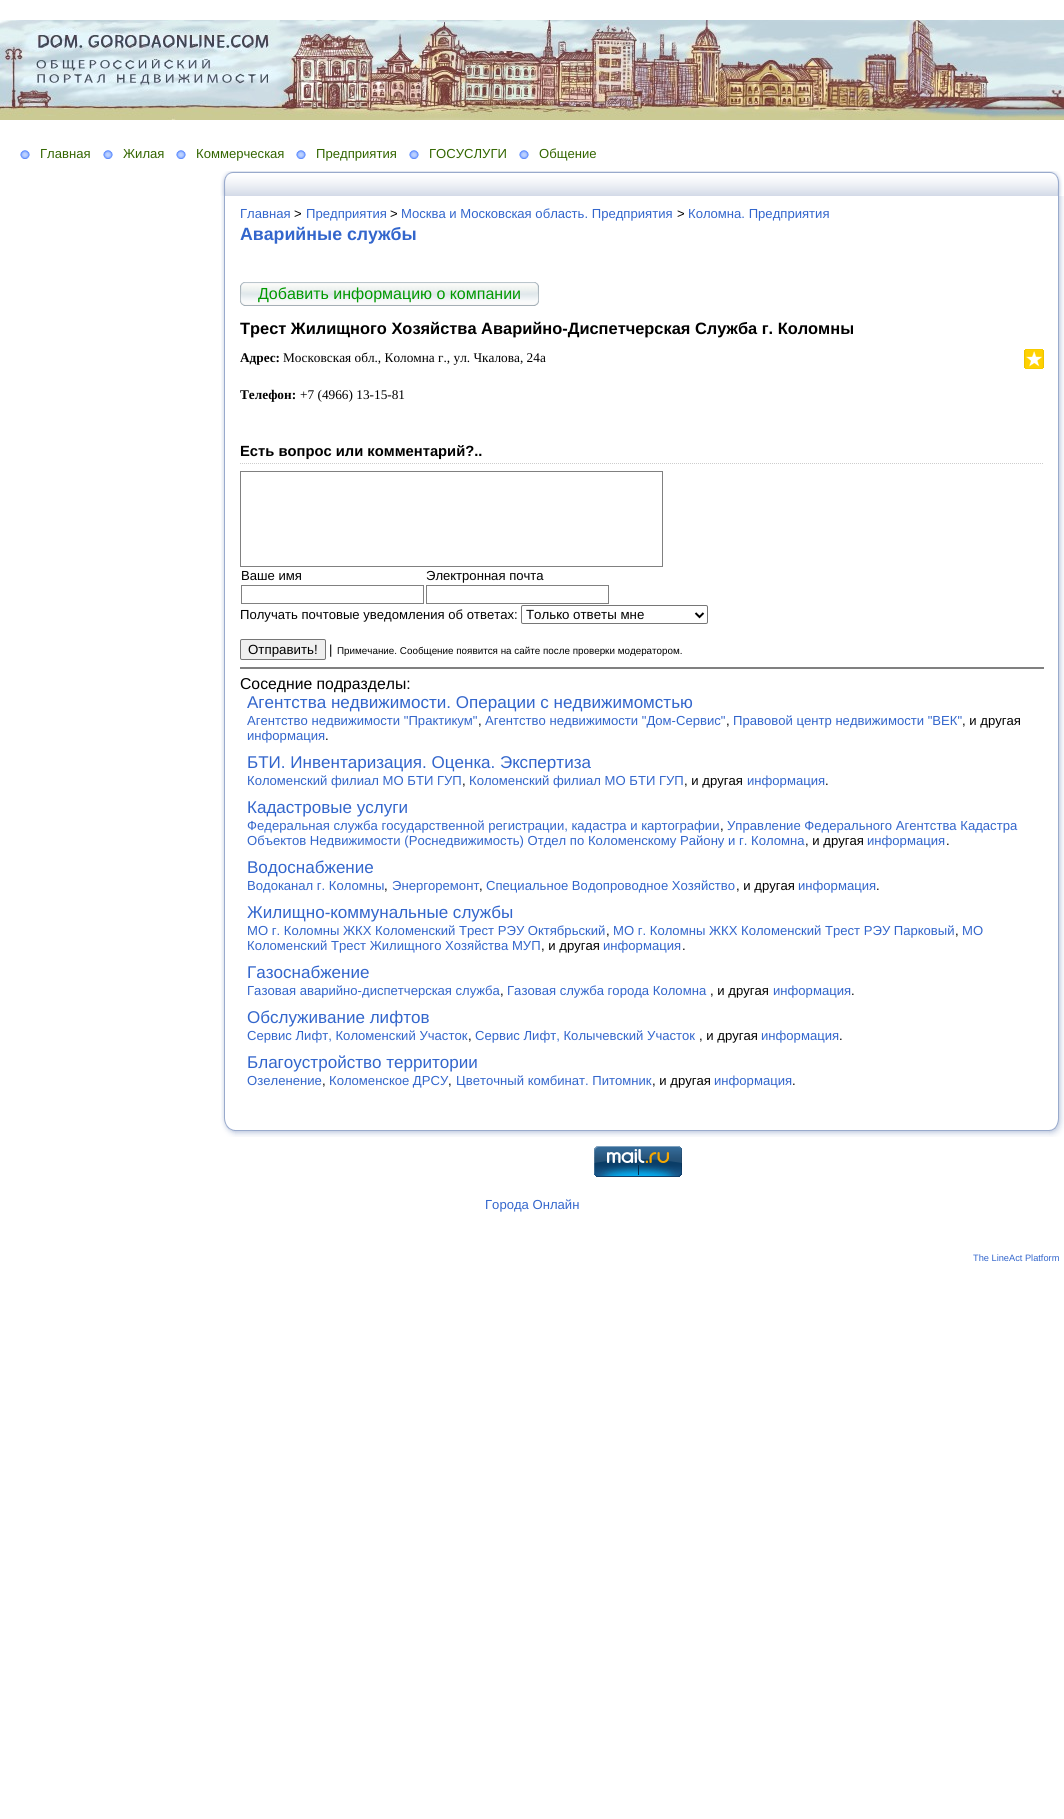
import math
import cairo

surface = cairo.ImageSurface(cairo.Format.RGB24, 1064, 1819)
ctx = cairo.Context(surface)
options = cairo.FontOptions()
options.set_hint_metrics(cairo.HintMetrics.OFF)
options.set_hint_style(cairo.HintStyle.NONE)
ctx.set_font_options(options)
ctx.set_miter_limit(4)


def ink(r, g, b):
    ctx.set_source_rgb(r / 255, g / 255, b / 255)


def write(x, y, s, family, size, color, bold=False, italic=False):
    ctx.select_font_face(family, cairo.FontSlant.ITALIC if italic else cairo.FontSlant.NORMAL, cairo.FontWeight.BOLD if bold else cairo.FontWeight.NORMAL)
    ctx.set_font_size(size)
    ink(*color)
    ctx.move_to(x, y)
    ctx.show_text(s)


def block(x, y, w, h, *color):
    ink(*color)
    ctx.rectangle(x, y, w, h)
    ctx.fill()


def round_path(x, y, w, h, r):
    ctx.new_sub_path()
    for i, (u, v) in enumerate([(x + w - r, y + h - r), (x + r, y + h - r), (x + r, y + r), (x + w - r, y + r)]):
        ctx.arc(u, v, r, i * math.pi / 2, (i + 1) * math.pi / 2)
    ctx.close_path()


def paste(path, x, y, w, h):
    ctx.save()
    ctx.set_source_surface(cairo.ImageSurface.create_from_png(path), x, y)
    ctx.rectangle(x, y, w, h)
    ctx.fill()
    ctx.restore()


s1 = dict(family="Liberation Sans", size=13.1, color=(51, 102, 0))
s2 = dict(family="Liberation Sans", size=13.1, color=(51, 102, 204))
s3 = dict(family="Liberation Sans", size=13.1, color=(0, 0, 0))
s4 = dict(family="Liberation Sans", size=17.75, color=(51, 102, 204), bold=True)
s5 = dict(family="Liberation Sans", size=16, color=(0, 153, 0))
s6 = dict(family="Liberation Sans", size=16.4, color=(0, 0, 0), bold=True)
s7 = dict(family="Liberation Serif", size=13.3, color=(0, 0, 0), bold=True)
s8 = dict(family="Liberation Serif", size=13.3, color=(0, 0, 0))
s9 = dict(family="Liberation Sans", size=14.75, color=(0, 0, 0), bold=True)
s10 = dict(family="Liberation Sans", size=13.3, color=(0, 0, 0))
s11 = dict(family="Liberation Sans", size=9.85, color=(0, 0, 0))
s12 = dict(family="Liberation Sans", size=15.75, color=(0, 0, 0))
s13 = dict(family="Liberation Sans", size=17.05, color=(51, 102, 204))
s14 = dict(family="Liberation Sans", size=9.25, color=(51, 102, 204))

ink(255, 255, 255)
ctx.paint()
paste("pic1.png", 0, 20, 1064, 100)
paste("pic2.png", 20, 150, 10, 9)
write(40, 158, "Главная", **s1)
paste("pic2.png", 103, 150, 10, 9)
write(123, 158, "Жилая", **s1)
paste("pic2.png", 176, 150, 10, 9)
write(196, 158, "Коммерческая", **s1)
paste("pic2.png", 296, 150, 10, 9)
write(316, 158, "Предприятия", **s1)
paste("pic2.png", 409, 150, 10, 9)
write(429, 158, "ГОСУСЛУГИ", **s1)
paste("pic2.png", 519, 150, 10, 9)
write(539, 158, "Общение", **s1)
paste("pic3.png", 233, 171, 817, 25)
paste("pic4.png", 1050, 171, 14, 25)
paste("pic5.png", 220, 171, 13, 25)
paste("pic6.png", 221, 196, 4, 922)
paste("pic7.png", 1058, 196, 6, 922)
write(240, 218, "Главная", **s2)
write(294, 218, ">", **s3)
write(306, 218, "Предприятия", **s2)
write(390, 218, ">", **s3)
write(401, 218, "Москва и Московская область. Предприятия", **s2)
write(677, 218, ">", **s3)
write(688, 218, "Коломна. Предприятия", **s2)
write(240, 240, "Аварийные службы", **s4)
paste("pic8.png", 521, 282, 18, 24)
paste("pic9.png", 240, 282, 281, 24)
write(258, 299, "Добавить информацию о компании", **s5)
write(240, 334, "Трест Жилищного Хозяйства Аварийно-Диспетчерская Служба г. Коломны", **s6)
write(240, 362, "Адрес:", **s7)
write(283, 362, "Московская обл., Коломна г., ул. Чкалова, 24а", **s8)
write(240, 399, "Телефон:", **s7)
write(300, 399, "+7 (4966) 13-15-81", **s8)
paste("pic10.png", 1024, 349, 20, 20)
ctx.new_path()
ctx.move_to(240, 463.5)
ctx.line_to(1044, 463.5)
ink(205, 205, 205)
ctx.set_line_width(1)
ctx.set_dash([1, 1])
ctx.stroke()
write(240, 456, "Есть вопрос или комментарий?..", **s9)
ctx.rectangle(240.5, 471.5, 422, 95)
ink(128, 128, 128)
ctx.set_dash([])
ctx.stroke()
write(241, 580, "Ваше имя", **s3)
write(426, 580, "Электронная почта", **s3)
ctx.rectangle(241.5, 585.5, 182, 18)
ink(128, 128, 128)
ctx.stroke()
ctx.rectangle(426.5, 585.5, 182, 18)
ctx.stroke()
write(240, 619, "Получать почтовые уведомления об ответах:", **s3)
round_path(521.5, 605.5, 186, 18, 1.5)
ink(118, 118, 118)
ctx.stroke()
ctx.new_path()
ctx.move_to(695.5, 613)
ctx.line_to(699.5, 617)
ctx.line_to(703.5, 613)
ink(0, 0, 0)
ctx.set_line_width(2)
ctx.stroke()
write(526, 619, "Только ответы мне", **s10)
ink(239, 239, 239)
round_path(240.5, 639.5, 85, 20, 1.5)
ctx.fill_preserve()
ink(118, 118, 118)
ctx.set_line_width(1)
ctx.stroke()
write(248, 654, "Отправить!", **s10)
write(329, 654, "|", **s3)
write(337, 654, "Примечание. Сообщение появится на сайте после проверки модератором.", **s11)
block(240, 667, 804, 2, 128, 128, 128)
write(240, 689, "Соседние подразделы:", **s12)
write(247, 708, "Агентства недвижимости. Операции с недвижимомстью", **s13)
write(247, 725, "Агентство недвижимости \"Практикум\"", **s2)
write(478, 725, ",", **s3)
write(485, 725, "Агентство недвижимости \"Дом-Сервис\"", **s2)
write(726, 725, ",", **s3)
write(733, 725, "Правовой центр недвижимости \"ВЕК\"", **s2)
write(962, 725, ", и другая", **s3)
write(247, 740, "информация", **s2)
write(325, 740, ".", **s3)
write(247, 768, "БТИ. Инвентаризация. Оценка. Экспертиза", **s13)
write(247, 785, "Коломенский филиал МО БТИ ГУП", **s2)
write(462, 785, ",", **s3)
write(469, 785, "Коломенский филиал МО БТИ ГУП", **s2)
write(684, 785, ", и другая", **s3)
write(747, 785, "информация", **s2)
write(825, 785, ".", **s3)
write(247, 813, "Кадастровые услуги", **s13)
write(247, 830, "Федеральная служба государственной регистрации, кадастра и картографии", **s2)
write(720, 830, ",", **s3)
write(727, 830, "Управление Федерального Агентства Кадастра", **s2)
write(247, 845, "Объектов Недвижимости (Роснедвижимость) Отдел по Коломенскому Району и г. Коломна", **s2)
write(805, 845, ", и другая", **s3)
write(867, 845, "информация", **s2)
write(946, 845, ".", **s3)
write(247, 873, "Водоснабжение", **s13)
write(247, 890, "Водоканал г. Коломны", **s2)
write(384, 890, ",", **s3)
write(392, 890, "Энергоремонт", **s2)
write(479, 890, ",", **s3)
write(486, 890, "Специальное Водопроводное Хозяйство", **s2)
write(736, 890, ", и другая", **s3)
write(798, 890, "информация", **s2)
write(876, 890, ".", **s3)
write(247, 918, "Жилищно-коммунальные службы", **s13)
write(247, 935, "МО г. Коломны ЖКХ Коломенский Трест РЭУ Октябрьский", **s2)
write(606, 935, ",", **s3)
write(613, 935, "МО г. Коломны ЖКХ Коломенский Трест РЭУ Парковый", **s2)
write(955, 935, ",", **s3)
write(962, 935, "МО", **s2)
write(247, 950, "Коломенский Трест Жилищного Хозяйства МУП", **s2)
write(541, 950, ", и другая", **s3)
write(603, 950, "информация", **s2)
write(682, 950, ".", **s3)
write(247, 978, "Газоснабжение", **s13)
write(247, 995, "Газовая аварийно-диспетчерская служба", **s2)
write(500, 995, ",", **s3)
write(507, 995, "Газовая служба города Коломна", **s2)
write(710, 995, ", и другая", **s3)
write(773, 995, "информация", **s2)
write(851, 995, ".", **s3)
write(247, 1023, "Обслуживание лифтов", **s13)
write(247, 1040, "Сервис Лифт, Коломенский Участок", **s2)
write(468, 1040, ",", **s3)
write(475, 1040, "Сервис Лифт, Колычевский Участок", **s2)
write(699, 1040, ", и другая", **s3)
write(761, 1040, "информация", **s2)
write(839, 1040, ".", **s3)
write(247, 1068, "Благоустройство территории", **s13)
write(247, 1085, "Озеленение", **s2)
write(322, 1085, ",", **s3)
write(329, 1085, "Коломенское ДРСУ", **s2)
write(448, 1085, ",", **s3)
write(456, 1085, "Цветочный комбинат. Питомник", **s2)
write(652, 1085, ", и другая", **s3)
write(714, 1085, "информация", **s2)
write(792, 1085, ".", **s3)
paste("pic11.png", 235, 1130, 814, 7)
paste("pic12.png", 1049, 1118, 15, 19)
paste("pic13.png", 220, 1118, 15, 19)
paste("pic14.png", 594, 1146, 88, 31)
write(485, 1209, "Города Онлайн", **s2)
write(973, 1261, "The LineAct Platform", **s14)
surface.write_to_png("screenshot.png")
